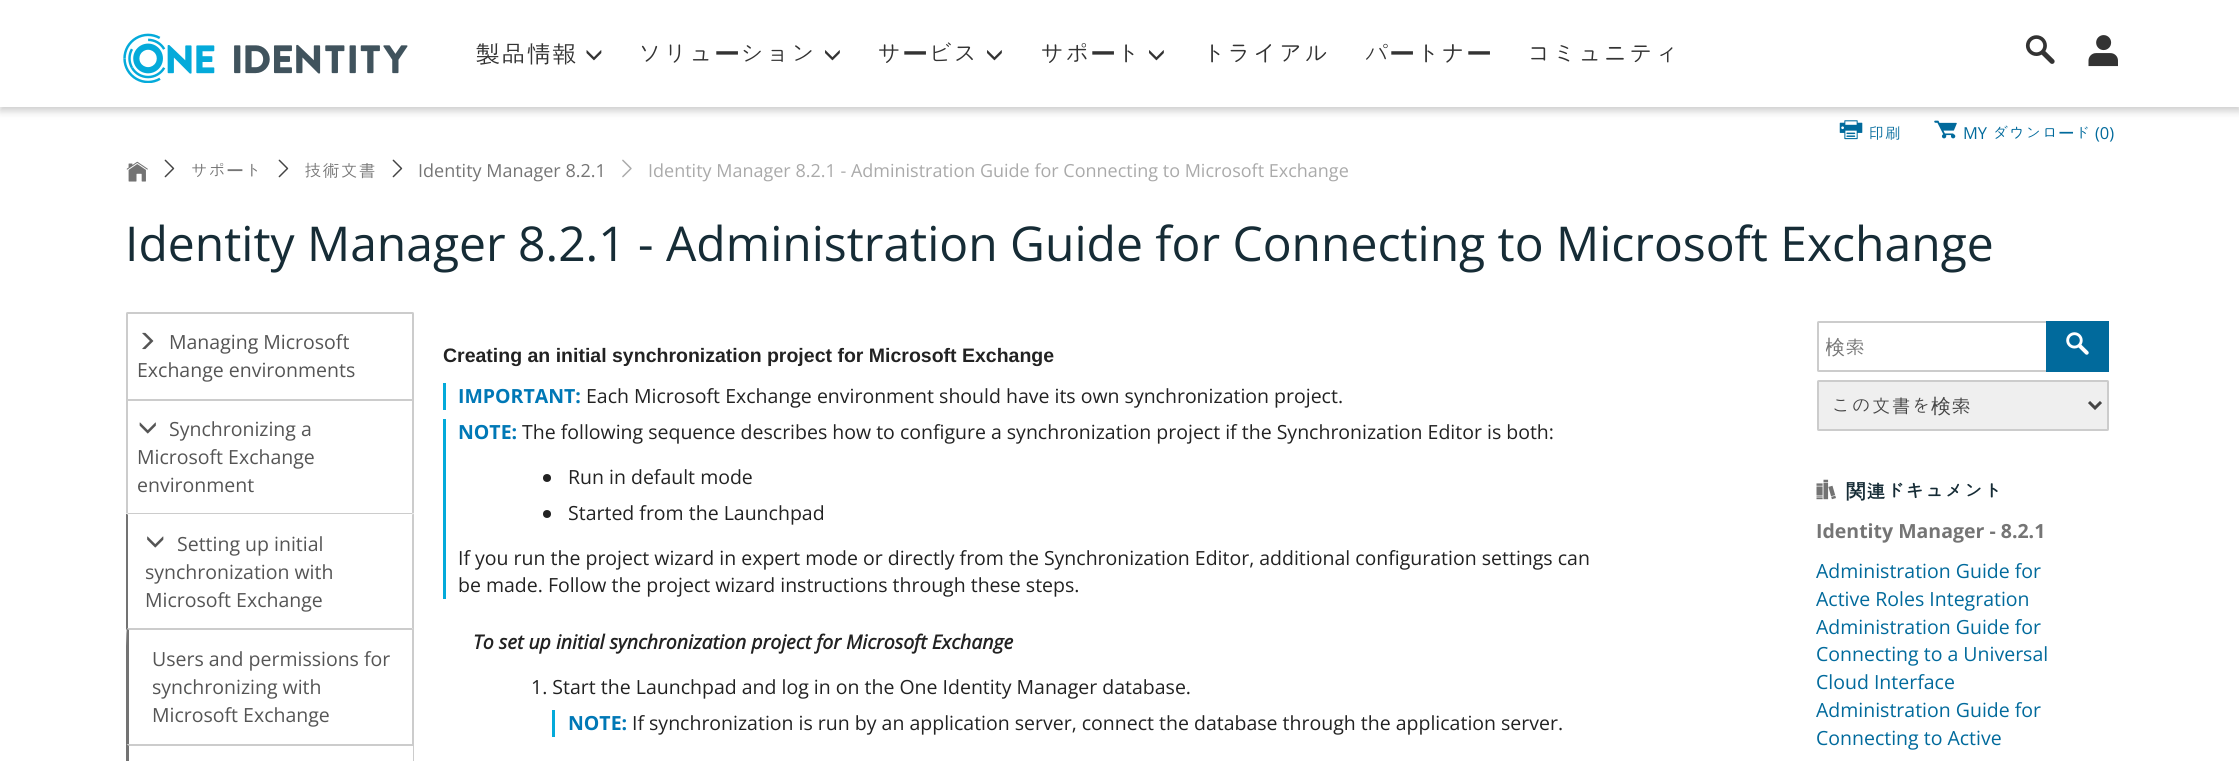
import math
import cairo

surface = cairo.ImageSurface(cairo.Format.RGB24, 2239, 761)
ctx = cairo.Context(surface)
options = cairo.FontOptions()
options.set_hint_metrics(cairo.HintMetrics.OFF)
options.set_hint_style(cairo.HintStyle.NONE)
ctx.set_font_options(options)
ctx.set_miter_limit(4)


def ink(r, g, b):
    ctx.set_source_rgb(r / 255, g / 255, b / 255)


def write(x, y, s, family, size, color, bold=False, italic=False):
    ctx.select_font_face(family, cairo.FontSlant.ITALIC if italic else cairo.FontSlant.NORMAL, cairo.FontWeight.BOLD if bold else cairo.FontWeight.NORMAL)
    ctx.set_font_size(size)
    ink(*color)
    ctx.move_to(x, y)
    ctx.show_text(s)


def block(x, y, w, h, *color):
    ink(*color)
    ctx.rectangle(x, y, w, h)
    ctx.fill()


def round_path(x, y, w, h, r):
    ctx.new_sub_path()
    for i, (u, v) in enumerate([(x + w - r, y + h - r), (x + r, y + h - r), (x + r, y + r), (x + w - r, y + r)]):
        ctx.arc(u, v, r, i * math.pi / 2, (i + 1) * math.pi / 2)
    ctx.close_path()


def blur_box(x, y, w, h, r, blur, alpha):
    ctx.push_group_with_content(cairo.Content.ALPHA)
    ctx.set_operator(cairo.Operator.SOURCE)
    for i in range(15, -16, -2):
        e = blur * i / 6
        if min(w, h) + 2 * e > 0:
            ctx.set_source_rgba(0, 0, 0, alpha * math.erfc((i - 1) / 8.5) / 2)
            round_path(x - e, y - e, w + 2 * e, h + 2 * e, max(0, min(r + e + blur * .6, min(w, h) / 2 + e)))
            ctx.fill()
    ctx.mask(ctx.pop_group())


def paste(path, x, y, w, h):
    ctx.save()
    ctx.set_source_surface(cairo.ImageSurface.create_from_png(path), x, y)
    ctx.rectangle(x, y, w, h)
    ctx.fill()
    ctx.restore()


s1 = dict(family="Gulim", size=25.5, color=(51, 51, 51))
s2 = dict(family="WenQuanYi Zen Hei", size=25.5, color=(51, 51, 51), bold=True)
s3 = dict(family="Gulim", size=16.5, color=(1, 106, 156))
s4 = dict(family="Open Sans", size=16.5, color=(1, 106, 156))
s5 = dict(family="WenQuanYi Zen Hei Medium", size=16.5, color=(1, 106, 156))
s6 = dict(family="Gulim", size=18, color=(117, 117, 117))
s7 = dict(family="WenQuanYi Zen Hei Medium", size=18, color=(117, 117, 117))
s8 = dict(family="Open Sans", size=18, color=(117, 117, 117))
s9 = dict(family="Open Sans", size=18, color=(170, 170, 170))
s10 = dict(family="Open Sans", size=48, color=(22, 44, 54))
s11 = dict(family="Open Sans", size=19.5, color=(85, 85, 85))
s12 = dict(family="Liberation Sans", size=19.5, color=(34, 34, 34), bold=True)
s13 = dict(family="Open Sans", size=19.5, color=(0, 120, 182), bold=True)
s14 = dict(family="Open Sans", size=19.5, color=(34, 34, 34))
s15 = dict(family="Open Sans", size=19.5, color=(34, 34, 34), bold=True, italic=True)
s16 = dict(family="WenQuanYi Zen Hei Medium", size=20, color=(117, 117, 117))
s17 = dict(family="Gulim", size=20, color=(117, 117, 117))
s18 = dict(family="Gulim", size=20, color=(68, 68, 68))
s19 = dict(family="WenQuanYi Zen Hei Medium", size=20, color=(68, 68, 68))
s20 = dict(family="WenQuanYi Zen Hei", size=19.5, color=(22, 44, 54), bold=True)
s21 = dict(family="Gulim", size=19.5, color=(22, 44, 54), bold=True)
s22 = dict(family="Open Sans", size=19.5, color=(117, 117, 117), bold=True)
s23 = dict(family="Open Sans", size=19.5, color=(1, 106, 156))

ink(255, 255, 255)
ctx.paint()
paste("pic6.png", 1839, 120, 24, 20)
paste("pic7.png", 1934, 120, 23, 19)
ctx.save()
ctx.set_fill_rule(cairo.FillRule.EVEN_ODD)
ctx.new_path()
ctx.move_to(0, 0)
ctx.line_to(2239, 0)
ctx.line_to(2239, 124)
ctx.line_to(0, 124)
ctx.close_path()
ctx.move_to(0, -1)
ctx.line_to(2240, -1)
ctx.line_to(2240, 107)
ctx.line_to(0, 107)
ctx.close_path()
ctx.clip()
ink(205, 205, 205)
blur_box(0, 3, 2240, 108, 0, 4, 1)
ctx.restore()
paste("pic1.png", 123, 33, 285, 50)
write(475, 63, "製品情報", **s1)
paste("pic2.png", 586, 50, 16, 11)
write(637, 63, "ソリュ", **s1)
write(714, 63, "ー", **s2)
write(739, 63, "ション", **s1)
paste("pic3.png", 825, 50, 15, 11)
write(876, 63, "サ", **s1)
write(902, 63, "ー", **s2)
write(927, 63, "ビス", **s1)
paste("pic3.png", 987, 50, 15, 11)
write(1039, 63, "サポ", **s1)
write(1090, 63, "ー", **s2)
write(1115, 63, "ト", **s1)
paste("pic3.png", 1149, 50, 15, 11)
write(1201, 63, "トライアル", **s1)
write(1364, 63, "パ", **s1)
write(1389, 63, "ー", **s2)
write(1415, 63, "トナ", **s1)
write(1466, 63, "ー", **s2)
write(1526, 63, "コミュニティ", **s1)
paste("pic4.png", 2025, 35, 30, 29)
paste("pic5.png", 2088, 35, 30, 32)
write(1868, 139, "印刷", **s3)
write(1963, 139, "MY", **s4)
write(1992, 139, "ダウンロ", **s3)
write(2058, 139, "ー", **s5)
write(2074, 139, "ド", **s3)
write(2095, 139, "(0)", **s4)
paste("pic8.png", 126, 161, 22, 21)
paste("pic9.png", 164, 159, 11, 19)
write(190, 177, "サポ", **s6)
write(226, 177, "ー", **s7)
write(244, 177, "ト", **s6)
paste("pic9.png", 278, 159, 11, 19)
write(304, 177, "技術文書", **s6)
paste("pic9.png", 392, 159, 11, 19)
write(418, 177, "Identity Manager 8.2.1", **s8)
paste("pic10.png", 622, 159, 10, 19)
write(648, 177, "Identity Manager 8.2.1 - Administration Guide for Connecting to Microsoft Exchange", **s9)
write(125, 261, "Identity Manager 8.2.1 - Administration Guide for Connecting to Microsoft Exchange", **s10)
ctx.new_path()
ctx.move_to(127.5, 313)
ctx.line_to(412.5, 313)
ctx.curve_to(413, 313, 413, 313, 413, 313.5)
ctx.line_to(413, 400)
ctx.line_to(127, 400)
ctx.line_to(127, 313.5)
ctx.curve_to(127, 313, 127, 313, 127.5, 313)
ctx.close_path()
ink(204, 204, 204)
ctx.stroke()
paste("pic11.png", 142, 332, 12, 18)
write(169, 349, "Managing Microsoft", **s11)
write(137, 377, "Exchange environments", **s11)
ctx.rectangle(127, 400, 286, 114)
ink(204, 204, 204)
ctx.stroke()
paste("pic12.png", 139, 422, 17, 12)
write(169, 436, "Synchronizing a", **s11)
write(137, 464, "Microsoft Exchange", **s11)
write(137, 492, "environment", **s11)
ink(255, 255, 255)
ctx.new_path()
ctx.move_to(127.5, 513)
ctx.line_to(412.5, 513)
ctx.curve_to(413.5, 513, 414, 513.5, 414, 514.5)
ctx.line_to(414, 630)
ctx.line_to(126, 630)
ctx.line_to(126, 514.5)
ctx.curve_to(126, 513.5, 126.5, 513, 127.5, 513)
ctx.close_path()
ctx.fill()
ink(204, 204, 204)
ctx.new_path()
ctx.move_to(128, 513)
ctx.line_to(127, 514)
ctx.line_to(128, 515)
ctx.line_to(128, 514)
ctx.line_to(412, 514)
ctx.line_to(412, 515)
ctx.line_to(413, 514)
ctx.line_to(412, 513)
ctx.close_path()
ctx.fill()
ctx.new_path()
ctx.move_to(414, 630)
ctx.line_to(414, 514)
ctx.line_to(413, 514)
ctx.line_to(412, 515)
ctx.line_to(412, 628)
ctx.close_path()
ctx.fill()
ctx.new_path()
ctx.move_to(414, 630)
ctx.line_to(412, 628)
ctx.line_to(128, 628)
ctx.line_to(126, 630)
ctx.close_path()
ctx.fill()
ink(115, 115, 115)
ctx.new_path()
ctx.move_to(126, 630)
ctx.line_to(128, 628)
ctx.line_to(128, 515)
ctx.line_to(127, 514)
ctx.line_to(126, 514)
ctx.close_path()
ctx.fill()
paste("pic13.png", 147, 536, 17, 12)
write(177, 551, "Setting up initial", **s11)
write(145, 579, "synchronization with", **s11)
write(145, 607, "Microsoft Exchange", **s11)
ctx.save()
ctx.rectangle(126, 629, 288, 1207)
ctx.clip()
ink(204, 204, 204)
ctx.new_path()
ctx.move_to(129, 630)
ctx.line_to(127, 629)
ctx.line_to(413, 628)
ctx.line_to(414, 629)
ctx.line_to(412, 630)
ctx.close_path()
ctx.fill()
ctx.new_path()
ctx.move_to(414, 746)
ctx.curve_to(414, 734, 415, 630, 414, 629)
ctx.line_to(412, 630)
ctx.line_to(412, 744)
ctx.close_path()
ctx.fill()
ctx.restore()
ink(204, 204, 204)
ctx.new_path()
ctx.move_to(414, 746)
ctx.line_to(126, 746)
ctx.line_to(129, 744)
ctx.line_to(412, 744)
ctx.close_path()
ctx.fill()
ctx.save()
ctx.rectangle(126, 629, 288, 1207)
ctx.clip()
ink(115, 115, 115)
ctx.new_path()
ctx.move_to(129, 630)
ctx.line_to(127, 629)
ctx.curve_to(125, 630, 126, 734, 126, 746)
ctx.line_to(129, 744)
ctx.close_path()
ctx.fill()
ctx.restore()
write(152, 666, "Users and permissions for", **s11)
write(152, 694, "synchronizing with", **s11)
write(152, 722, "Microsoft Exchange", **s11)
ink(204, 204, 204)
ctx.new_path()
ctx.move_to(126, 744)
ctx.line_to(414, 744)
ctx.line_to(412, 746)
ctx.line_to(129, 746)
ctx.close_path()
ctx.fill()
block(413, 744, 1, 17, 204, 204, 204)
ink(115, 115, 115)
ctx.new_path()
ctx.move_to(126, 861)
ctx.line_to(126, 744)
ctx.line_to(129, 746)
ctx.line_to(129, 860)
ctx.close_path()
ctx.fill()
write(443, 362, "Creating an initial synchronization project for Microsoft Exchange", **s12)
block(443, 383, 3, 27, 4, 170, 218)
write(458, 403, "IMPORTANT:", **s13)
write(586, 403, "Each Microsoft Exchange environment should have its own synchronization project.", **s14)
block(443, 419, 3, 180, 4, 170, 218)
write(458, 439, "NOTE:", **s13)
write(522, 439, "The following sequence describes how to configure a synchronization project if the Synchronization Editor is both:", **s14)
ctx.new_path()
ctx.arc(547, 478, 4, 0, 2 * math.pi)
ctx.fill()
write(568, 484, "Run in default mode", **s14)
ctx.new_path()
ctx.arc(547, 514, 4, 0, 2 * math.pi)
ctx.fill()
write(568, 520, "Started from the Launchpad", **s14)
write(458, 565, "If you run the project wizard in expert mode or directly from the Synchronization Editor, additional configuration settings can", **s14)
write(458, 592, "be made. Follow the project wizard instructions through these steps.", **s14)
write(473, 649, "To set up initial synchronization project for Microsoft Exchange", **s15)
write(531, 694, "1. Start the Launchpad and log in on the One Identity Manager database.", **s14)
block(552, 710, 3, 27, 4, 170, 218)
write(568, 730, "NOTE:", **s13)
write(632, 730, "If synchronization is run by an application server, connect the database through the application server.", **s14)
round_path(1818, 322, 230, 49, 0.5)
ink(204, 204, 204)
ctx.stroke()
ctx.save()
ctx.rectangle(1826, 332, 219, 30)
ctx.clip()
write(1825, 354, "検", **s16)
ctx.restore()
write(1845, 354, "索", **s17)
block(2046, 321, 63, 51, 1, 106, 156)
paste("pic14.png", 2066, 332, 23, 23)
ink(239, 239, 239)
round_path(1818, 381, 290, 49, 0.5)
ctx.fill_preserve()
ink(204, 204, 204)
ctx.stroke()
ctx.new_path()
ctx.move_to(2089, 402)
ctx.line_to(2095, 408)
ctx.line_to(2101, 402)
ink(68, 68, 68)
ctx.set_line_width(3)
ctx.stroke()
write(1831, 413, "この文書を", **s18)
write(1931, 413, "検", **s19)
write(1951, 413, "索", **s18)
paste("pic15.png", 1816, 479, 20, 21)
write(1846, 498, "関", **s20)
write(1866, 498, "連ドキュメント", **s21)
write(1816, 538, "Identity Manager - 8.2.1", **s22)
write(1816, 578, "Administration Guide for", **s23)
write(1816, 606, "Active Roles Integration", **s23)
write(1816, 634, "Administration Guide for", **s23)
write(1816, 661, "Connecting to a Universal", **s23)
write(1816, 689, "Cloud Interface", **s23)
write(1816, 717, "Administration Guide for", **s23)
write(1816, 745, "Connecting to Active", **s23)
surface.write_to_png("screenshot.png")
